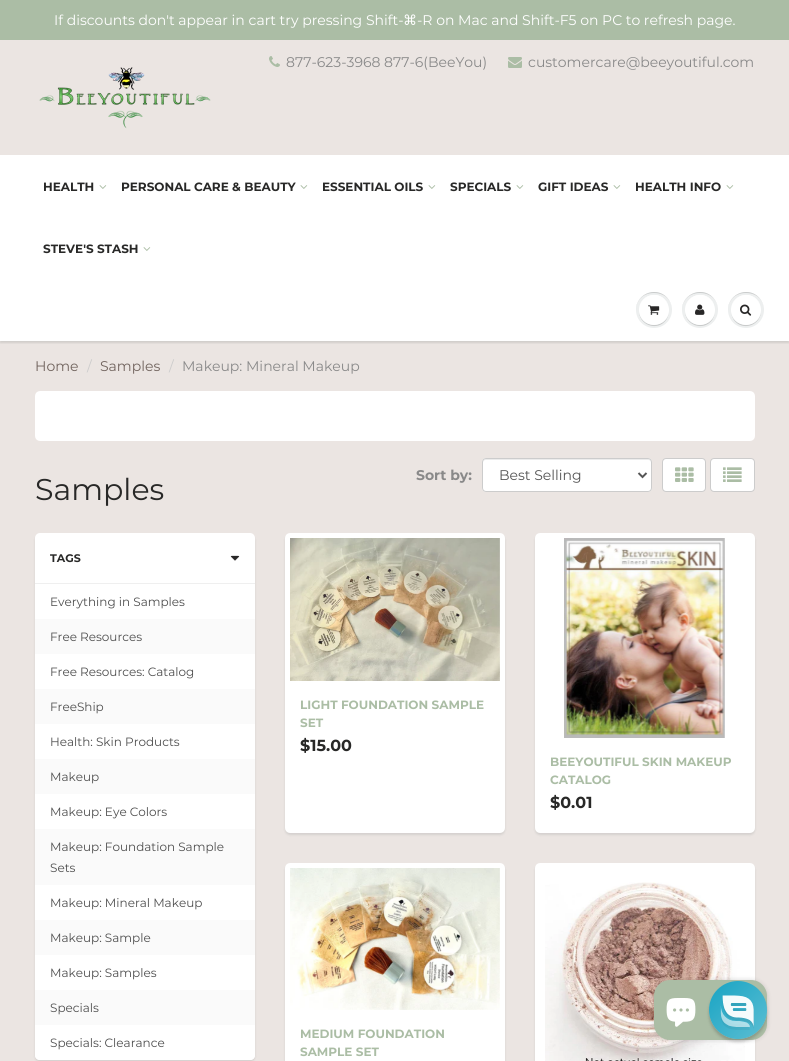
import math
import cairo

surface = cairo.ImageSurface(cairo.Format.RGB24, 789, 1061)
ctx = cairo.Context(surface)
options = cairo.FontOptions()
options.set_hint_metrics(cairo.HintMetrics.OFF)
options.set_hint_style(cairo.HintStyle.NONE)
ctx.set_font_options(options)
ctx.set_miter_limit(4)


def ink(r, g, b):
    ctx.set_source_rgb(r / 255, g / 255, b / 255)


def write(x, y, s, family, size, color, bold=False, italic=False):
    ctx.select_font_face(family, cairo.FontSlant.ITALIC if italic else cairo.FontSlant.NORMAL, cairo.FontWeight.BOLD if bold else cairo.FontWeight.NORMAL)
    ctx.set_font_size(size)
    ink(*color)
    ctx.move_to(x, y)
    ctx.show_text(s)


def block(x, y, w, h, *color):
    ink(*color)
    ctx.rectangle(x, y, w, h)
    ctx.fill()


def round_path(x, y, w, h, r):
    ctx.new_sub_path()
    for i, (u, v) in enumerate([(x + w - r, y + h - r), (x + r, y + h - r), (x + r, y + r), (x + w - r, y + r)]):
        ctx.arc(u, v, r, i * math.pi / 2, (i + 1) * math.pi / 2)
    ctx.close_path()


def blur_box(x, y, w, h, r, blur, alpha):
    ctx.push_group_with_content(cairo.Content.ALPHA)
    ctx.set_operator(cairo.Operator.SOURCE)
    for i in range(15, -16, -2):
        e = blur * i / 6
        if min(w, h) + 2 * e > 0:
            ctx.set_source_rgba(0, 0, 0, alpha * math.erfc((i - 1) / 8.5) / 2)
            round_path(x - e, y - e, w + 2 * e, h + 2 * e, max(0, min(r + e + blur * .6, min(w, h) / 2 + e)))
            ctx.fill()
    ctx.mask(ctx.pop_group())


def paste(path, x, y, w, h):
    ctx.save()
    ctx.set_source_surface(cairo.ImageSurface.create_from_png(path), x, y)
    ctx.rectangle(x, y, w, h)
    ctx.fill()
    ctx.restore()


s1 = dict(family="Montserrat", size=14, color=(255, 255, 255))
s2 = dict(family="DejaVu Sans", size=14, color=(255, 255, 255))
s3 = dict(family="Montserrat", size=14, color=(137, 137, 137))
s4 = dict(family="Montserrat", size=12, color=(40, 40, 39), bold=True)
s5 = dict(family="Montserrat", size=14, color=(112, 99, 93))
s6 = dict(family="Montserrat", size=14, color=(204, 204, 204))
s7 = dict(family="Montserrat", size=11, color=(40, 40, 39), bold=True)
s8 = dict(family="Montserrat", size=12, color=(78, 78, 78))
s9 = dict(family="Montserrat", size=14, color=(137, 137, 137), bold=True)
s10 = dict(family="Montserrat", size=14, color=(85, 85, 85))
s11 = dict(family="Montserrat", size=12, color=(171, 189, 165), bold=True)
s12 = dict(family="Montserrat", size=16, color=(40, 40, 39), bold=True)
s13 = dict(family="Montserrat", size=30, color=(40, 40, 39))

ink(255, 255, 255)
ctx.paint()
block(0, 0, 789, 40, 171, 189, 165)
write(54, 25, "If discounts don't appear in cart try pressing Shift-", **s1)
write(403, 25, "⌘", **s2)
write(417, 25, "-R on Mac and Shift-F5 on PC to refresh page.", **s1)
block(0, 40, 789, 114, 235, 229, 226)
paste("pic1.png", 269, 56, 11, 11)
write(286, 67, "877-623-3968 877-6(BeeYou)", **s3)
paste("pic2.png", 508, 57, 14, 11)
write(528, 67, "customercare@beeyoutiful.com", **s3)
paste("pic3.png", 39, 67, 172, 62)
block(0, 341, 789, 720, 235, 229, 226)
ctx.save()
ctx.rectangle(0, 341, 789, 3)
ctx.clip()
ink(11, 25, 28)
blur_box(0, 156, 789, 187, 0, 1, 0.12)
ctx.restore()
block(0, 154, 789, 1, 235, 229, 226)
write(43, 191, "HEALTH", **s4)
paste("pic4.png", 99, 185, 8, 4)
write(121, 191, "PERSONAL CARE & BEAUTY", **s4)
paste("pic4.png", 300, 185, 8, 4)
write(322, 191, "ESSENTIAL OILS", **s4)
paste("pic4.png", 428, 185, 8, 4)
write(450, 191, "SPECIALS", **s4)
paste("pic4.png", 516, 185, 8, 4)
write(538, 191, "GIFT IDEAS", **s4)
paste("pic4.png", 613, 185, 8, 4)
write(635, 191, "HEALTH INFO", **s4)
paste("pic4.png", 726, 185, 8, 4)
write(43, 253, "STEVE'S STASH", **s4)
paste("pic4.png", 143, 247, 8, 4)
ink(237, 239, 239)
ctx.arc(654, 310, 18, 0, 2 * math.pi)
ctx.fill()
ink(201, 203, 203)
ctx.new_path()
ctx.move_to(654, 293)
ctx.curve_to(666, 293, 672, 301.5, 672, 310.5)
ctx.curve_to(672, 307, 671, 303, 669, 300)
ctx.curve_to(659, 285, 635.5, 292.5, 636, 310.5)
ctx.curve_to(636, 301.5, 642, 293, 654, 293)
ctx.close_path()
ctx.fill()
ctx.new_path()
ctx.move_to(669, 310.5)
ctx.curve_to(668.5, 329.5, 639.5, 329.5, 639, 310.5)
ctx.curve_to(638.5, 325.5, 658, 332, 666.5, 319.5)
ctx.curve_to(668, 317, 669, 313.5, 669, 310.5)
ctx.close_path()
ctx.fill()
ink(255, 255, 255)
ctx.arc(654, 310, 15, 0, 2 * math.pi)
ctx.fill()
ctx.new_path()
ctx.move_to(654, 296)
ctx.curve_to(664, 296, 669, 303, 669, 310.5)
ctx.curve_to(669, 307.5, 668, 304, 666.5, 301.5)
ctx.curve_to(658, 289, 638.5, 295.5, 639, 310.5)
ctx.curve_to(639, 303, 644, 296, 654, 296)
ctx.close_path()
ctx.fill()
paste("pic5.png", 648, 305, 12, 10)
ink(237, 239, 239)
ctx.arc(700, 310, 18, 0, 2 * math.pi)
ctx.fill()
ink(201, 203, 203)
ctx.new_path()
ctx.move_to(700, 293)
ctx.curve_to(712, 293, 718, 301.5, 718, 310.5)
ctx.curve_to(718, 307, 717, 303, 715, 300)
ctx.curve_to(705, 285, 681.5, 292.5, 682, 310.5)
ctx.curve_to(682, 301.5, 688, 293, 700, 293)
ctx.close_path()
ctx.fill()
ctx.new_path()
ctx.move_to(715, 310.5)
ctx.curve_to(714.5, 329.5, 685.5, 329.5, 685, 310.5)
ctx.curve_to(684.5, 325.5, 704, 332, 712.5, 319.5)
ctx.curve_to(714, 317, 715, 313.5, 715, 310.5)
ctx.close_path()
ctx.fill()
ink(255, 255, 255)
ctx.arc(700, 310, 15, 0, 2 * math.pi)
ctx.fill()
ctx.new_path()
ctx.move_to(700, 296)
ctx.curve_to(710, 296, 715, 303, 715, 310.5)
ctx.curve_to(715, 307.5, 714, 304, 712.5, 301.5)
ctx.curve_to(704, 289, 684.5, 295.5, 685, 310.5)
ctx.curve_to(685, 303, 690, 296, 700, 296)
ctx.close_path()
ctx.fill()
paste("pic6.png", 695, 304, 10, 11)
ink(237, 239, 239)
ctx.arc(746, 310, 18, 0, 2 * math.pi)
ctx.fill()
ink(201, 203, 203)
ctx.new_path()
ctx.move_to(746, 293)
ctx.curve_to(758, 293, 764, 301.5, 764, 310.5)
ctx.curve_to(764, 307, 763, 303, 761, 300)
ctx.curve_to(751, 285, 727.5, 292.5, 728, 310.5)
ctx.curve_to(728, 301.5, 734, 293, 746, 293)
ctx.close_path()
ctx.fill()
ctx.new_path()
ctx.move_to(761, 310.5)
ctx.curve_to(760.5, 329.5, 731.5, 329.5, 731, 310.5)
ctx.curve_to(731, 313.5, 732, 317, 733.5, 319.5)
ctx.curve_to(742, 332, 761.5, 325.5, 761, 310.5)
ctx.close_path()
ctx.fill()
ink(255, 255, 255)
ctx.arc(746, 310, 15, 0, 2 * math.pi)
ctx.fill()
ctx.new_path()
ctx.move_to(746, 296)
ctx.curve_to(756, 296, 761, 303, 761, 310.5)
ctx.curve_to(761, 307.5, 760, 304, 758.5, 301.5)
ctx.curve_to(750, 289, 730.5, 295.5, 731, 310.5)
ctx.curve_to(731, 303, 736, 296, 746, 296)
ctx.close_path()
ctx.fill()
paste("pic7.png", 740, 304, 12, 12)
write(35, 371, "Home", **s5)
write(87, 371, "/", **s6)
write(100, 371, "Samples", **s5)
write(169, 371, "/", **s6)
write(182, 371, "Makeup: Mineral Makeup", **s3)
round_path(37.5, 393.5, 715, 45, 2.5)
ink(255, 255, 255)
ctx.set_line_width(5)
ctx.stroke()
block(40, 396, 710, 40, 255, 255, 255)
ink(11, 25, 28)
blur_box(35, 535, 220, 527, 5, 1, 0.1)
ink(255, 255, 255)
round_path(35, 533, 220, 527, 5)
ctx.fill()
block(35, 583, 220, 1, 239, 239, 239)
paste("pic8.png", 230, 555, 10, 6)
write(50, 562, "TAGS", **s7)
write(50, 606, "Everything in Samples", **s8)
block(35, 619, 220, 35, 250, 250, 250)
write(50, 641, "Free Resources", **s8)
write(50, 676, "Free Resources: Catalog", **s8)
block(35, 689, 220, 35, 250, 250, 250)
write(50, 711, "FreeShip", **s8)
write(50, 746, "Health: Skin Products", **s8)
block(35, 759, 220, 35, 250, 250, 250)
write(50, 781, "Makeup", **s8)
write(50, 816, "Makeup: Eye Colors", **s8)
block(35, 829, 220, 56, 250, 250, 250)
write(50, 851, "Makeup: Foundation Sample", **s8)
write(50, 872, "Sets", **s8)
write(50, 907, "Makeup: Mineral Makeup", **s8)
block(35, 920, 220, 35, 250, 250, 250)
write(50, 942, "Makeup: Sample", **s8)
write(50, 977, "Makeup: Samples", **s8)
block(35, 990, 220, 35, 250, 250, 250)
write(50, 1012, "Specials", **s8)
ink(255, 255, 255)
ctx.new_path()
ctx.move_to(35, 1025)
ctx.line_to(255, 1025)
ctx.line_to(255, 1055)
ctx.curve_to(255, 1058, 253, 1060, 250, 1060)
ctx.line_to(40, 1060)
ctx.curve_to(37, 1060, 35, 1058, 35, 1055)
ctx.close_path()
ctx.fill()
write(50, 1047, "Specials: Clearance", **s8)
write(416, 480, "Sort by:", **s9)
ink(255, 255, 255)
round_path(482, 458, 170, 34, 4)
ctx.fill()
ink(236, 236, 236)
ctx.new_path()
ctx.move_to(486, 460)
ctx.line_to(648, 460)
ctx.curve_to(650, 460, 651, 461, 651, 463)
ctx.line_to(651, 462)
ctx.curve_to(651, 460, 650, 459, 648, 459)
ctx.line_to(486, 459)
ctx.curve_to(484, 459, 483, 460, 483, 462)
ctx.line_to(483, 463)
ctx.curve_to(483, 461, 484, 460, 486, 460)
ctx.close_path()
ctx.fill()
round_path(482.5, 458.5, 169, 33, 3.5)
ink(204, 204, 204)
ctx.set_line_width(1)
ctx.stroke()
ctx.new_path()
ctx.move_to(638.5, 473)
ctx.line_to(642.5, 477)
ctx.line_to(646.5, 473)
ink(85, 85, 85)
ctx.set_line_width(2)
ctx.stroke()
write(499, 480, "Best Selling", **s10)
ink(255, 255, 255)
round_path(662.5, 458.5, 43, 33, 3.5)
ctx.fill_preserve()
ink(204, 204, 204)
ctx.set_line_width(1)
ctx.stroke()
paste("pic9.png", 675, 467, 19, 15)
ink(255, 255, 255)
round_path(710.5, 458.5, 44, 33, 3.5)
ctx.fill_preserve()
ink(204, 204, 204)
ctx.stroke()
paste("pic10.png", 723, 467, 19, 15)
ink(11, 25, 28)
blur_box(285, 535, 220, 300, 5, 1, 0.1)
ink(255, 255, 255)
round_path(287.5, 535.5, 215, 295, 2.5)
ctx.fill_preserve()
ctx.set_line_width(5)
ctx.stroke()
paste("pic11.png", 290, 538, 210, 143)
write(300, 709, "LIGHT FOUNDATION SAMPLE", **s11)
write(300, 727, "SET", **s11)
write(300, 751, "$15.00", **s12)
ink(11, 25, 28)
blur_box(535, 535, 220, 300, 5, 1, 0.1)
ink(255, 255, 255)
round_path(537.5, 535.5, 215, 295, 2.5)
ctx.fill_preserve()
ctx.stroke()
paste("pic12.png", 564, 538, 161, 200)
write(550, 766, "BEEYOUTIFUL SKIN MAKEUP", **s11)
write(550, 784, "CATALOG", **s11)
write(550, 808, "$0.01", **s12)
ink(11, 25, 28)
blur_box(285, 865, 220, 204, 5, 1, 0.1)
ink(255, 255, 255)
round_path(287.5, 865.5, 215, 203, 2.5)
ctx.fill_preserve()
ctx.stroke()
paste("pic13.png", 290, 868, 210, 142)
write(300, 1038, "MEDIUM FOUNDATION", **s11)
write(300, 1056, "SAMPLE SET", **s11)
ink(11, 25, 28)
blur_box(535, 865, 220, 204, 5, 1, 0.1)
ink(255, 255, 255)
round_path(537.5, 865.5, 215, 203, 2.5)
ctx.fill_preserve()
ctx.stroke()
paste("pic14.png", 545, 882, 200, 179)
write(35, 500, "Samples", **s13)
ink(0, 0, 0)
blur_box(654, 980, 113, 60, 16, 2.5, 0.15)
ink(171, 189, 165)
round_path(654, 980, 113, 60, 16)
ctx.fill()
paste("pic15.png", 666, 998, 30, 29)
ctx.save()
ctx.set_fill_rule(cairo.FillRule.EVEN_ODD)
ctx.new_path()
ctx.move_to(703, 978)
ctx.line_to(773, 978)
ctx.line_to(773, 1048)
ctx.line_to(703, 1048)
ctx.close_path()
ctx.move_to(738, 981)
ctx.curve_to(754, 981, 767, 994, 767, 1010)
ctx.curve_to(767, 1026, 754, 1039, 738, 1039)
ctx.curve_to(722, 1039, 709, 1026, 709, 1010)
ctx.curve_to(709, 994, 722, 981, 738, 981)
ctx.close_path()
ctx.clip()
ink(0, 0, 0)
blur_box(709, 984, 58, 58, 29, 1.5, 0.19)
ctx.restore()
gradient = cairo.LinearGradient(709, 981, 767, 1039)
gradient.add_color_stop_rgba(0, 0.063, 0.635, 0.773, 0.95)
gradient.add_color_stop_rgba(1, 0.345, 0.745, 0.839, 0.95)
ctx.set_source(gradient)
ctx.arc(738, 1010, 29, 0, 2 * math.pi)
ctx.fill()
paste("pic16.png", 720, 995, 34, 35)
surface.write_to_png("screenshot.png")
